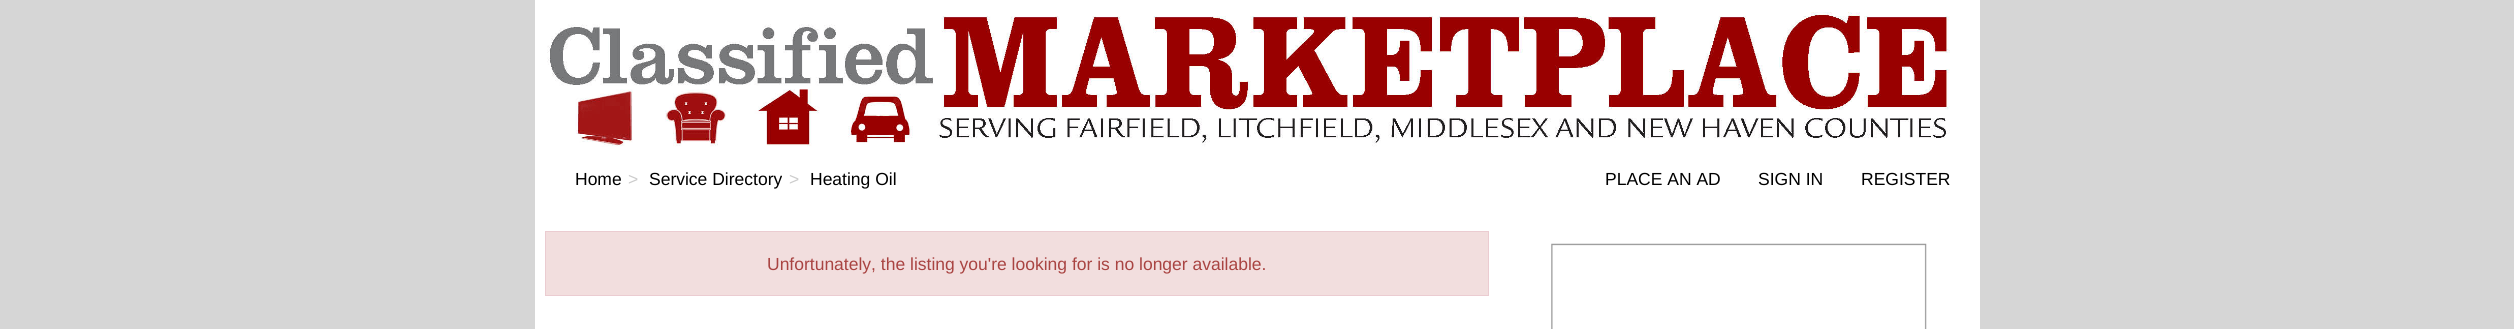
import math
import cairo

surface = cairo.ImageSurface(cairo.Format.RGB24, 2514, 329)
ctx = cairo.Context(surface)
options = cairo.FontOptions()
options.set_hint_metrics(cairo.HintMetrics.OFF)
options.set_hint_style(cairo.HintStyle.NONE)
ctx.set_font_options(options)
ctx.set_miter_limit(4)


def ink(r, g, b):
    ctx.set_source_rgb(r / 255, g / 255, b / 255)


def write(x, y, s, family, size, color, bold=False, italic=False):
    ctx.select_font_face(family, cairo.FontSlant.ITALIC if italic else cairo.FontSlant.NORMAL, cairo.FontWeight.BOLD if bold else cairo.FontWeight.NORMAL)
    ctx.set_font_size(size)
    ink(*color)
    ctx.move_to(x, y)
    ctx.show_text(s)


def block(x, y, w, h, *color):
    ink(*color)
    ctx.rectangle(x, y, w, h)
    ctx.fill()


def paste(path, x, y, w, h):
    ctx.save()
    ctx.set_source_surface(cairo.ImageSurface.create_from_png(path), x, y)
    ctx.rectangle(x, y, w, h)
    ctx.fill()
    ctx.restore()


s1 = dict(family="Liberation Sans", size=17.5, color=(0, 0, 0))
s2 = dict(family="Liberation Sans", size=17.5, color=(204, 204, 204))
s3 = dict(family="Liberation Sans", size=17.5, color=(169, 68, 66))

ink(214, 214, 214)
ctx.paint()
block(535, 0, 1445, 329, 255, 255, 255)
paste("pic1.png", 547, 12, 1403, 135)
write(575, 185, "Home", **s1)
write(628, 185, ">", **s2)
write(649, 185, "Service Directory", **s1)
write(789, 185, ">", **s2)
write(810, 185, "Heating Oil", **s1)
write(1605, 185, "PLACE AN AD", **s1)
write(1758, 185, "SIGN IN", **s1)
write(1861, 185, "REGISTER", **s1)
ink(242, 222, 222)
ctx.rectangle(545.5, 231.5, 943, 64)
ctx.fill_preserve()
ink(235, 204, 209)
ctx.set_line_width(1)
ctx.stroke()
write(767, 270, "Unfortunately, the listing you're looking for is no longer available.", **s3)
paste("pic2.png", 1551, 243, 376, 86)
surface.write_to_png("screenshot.png")
